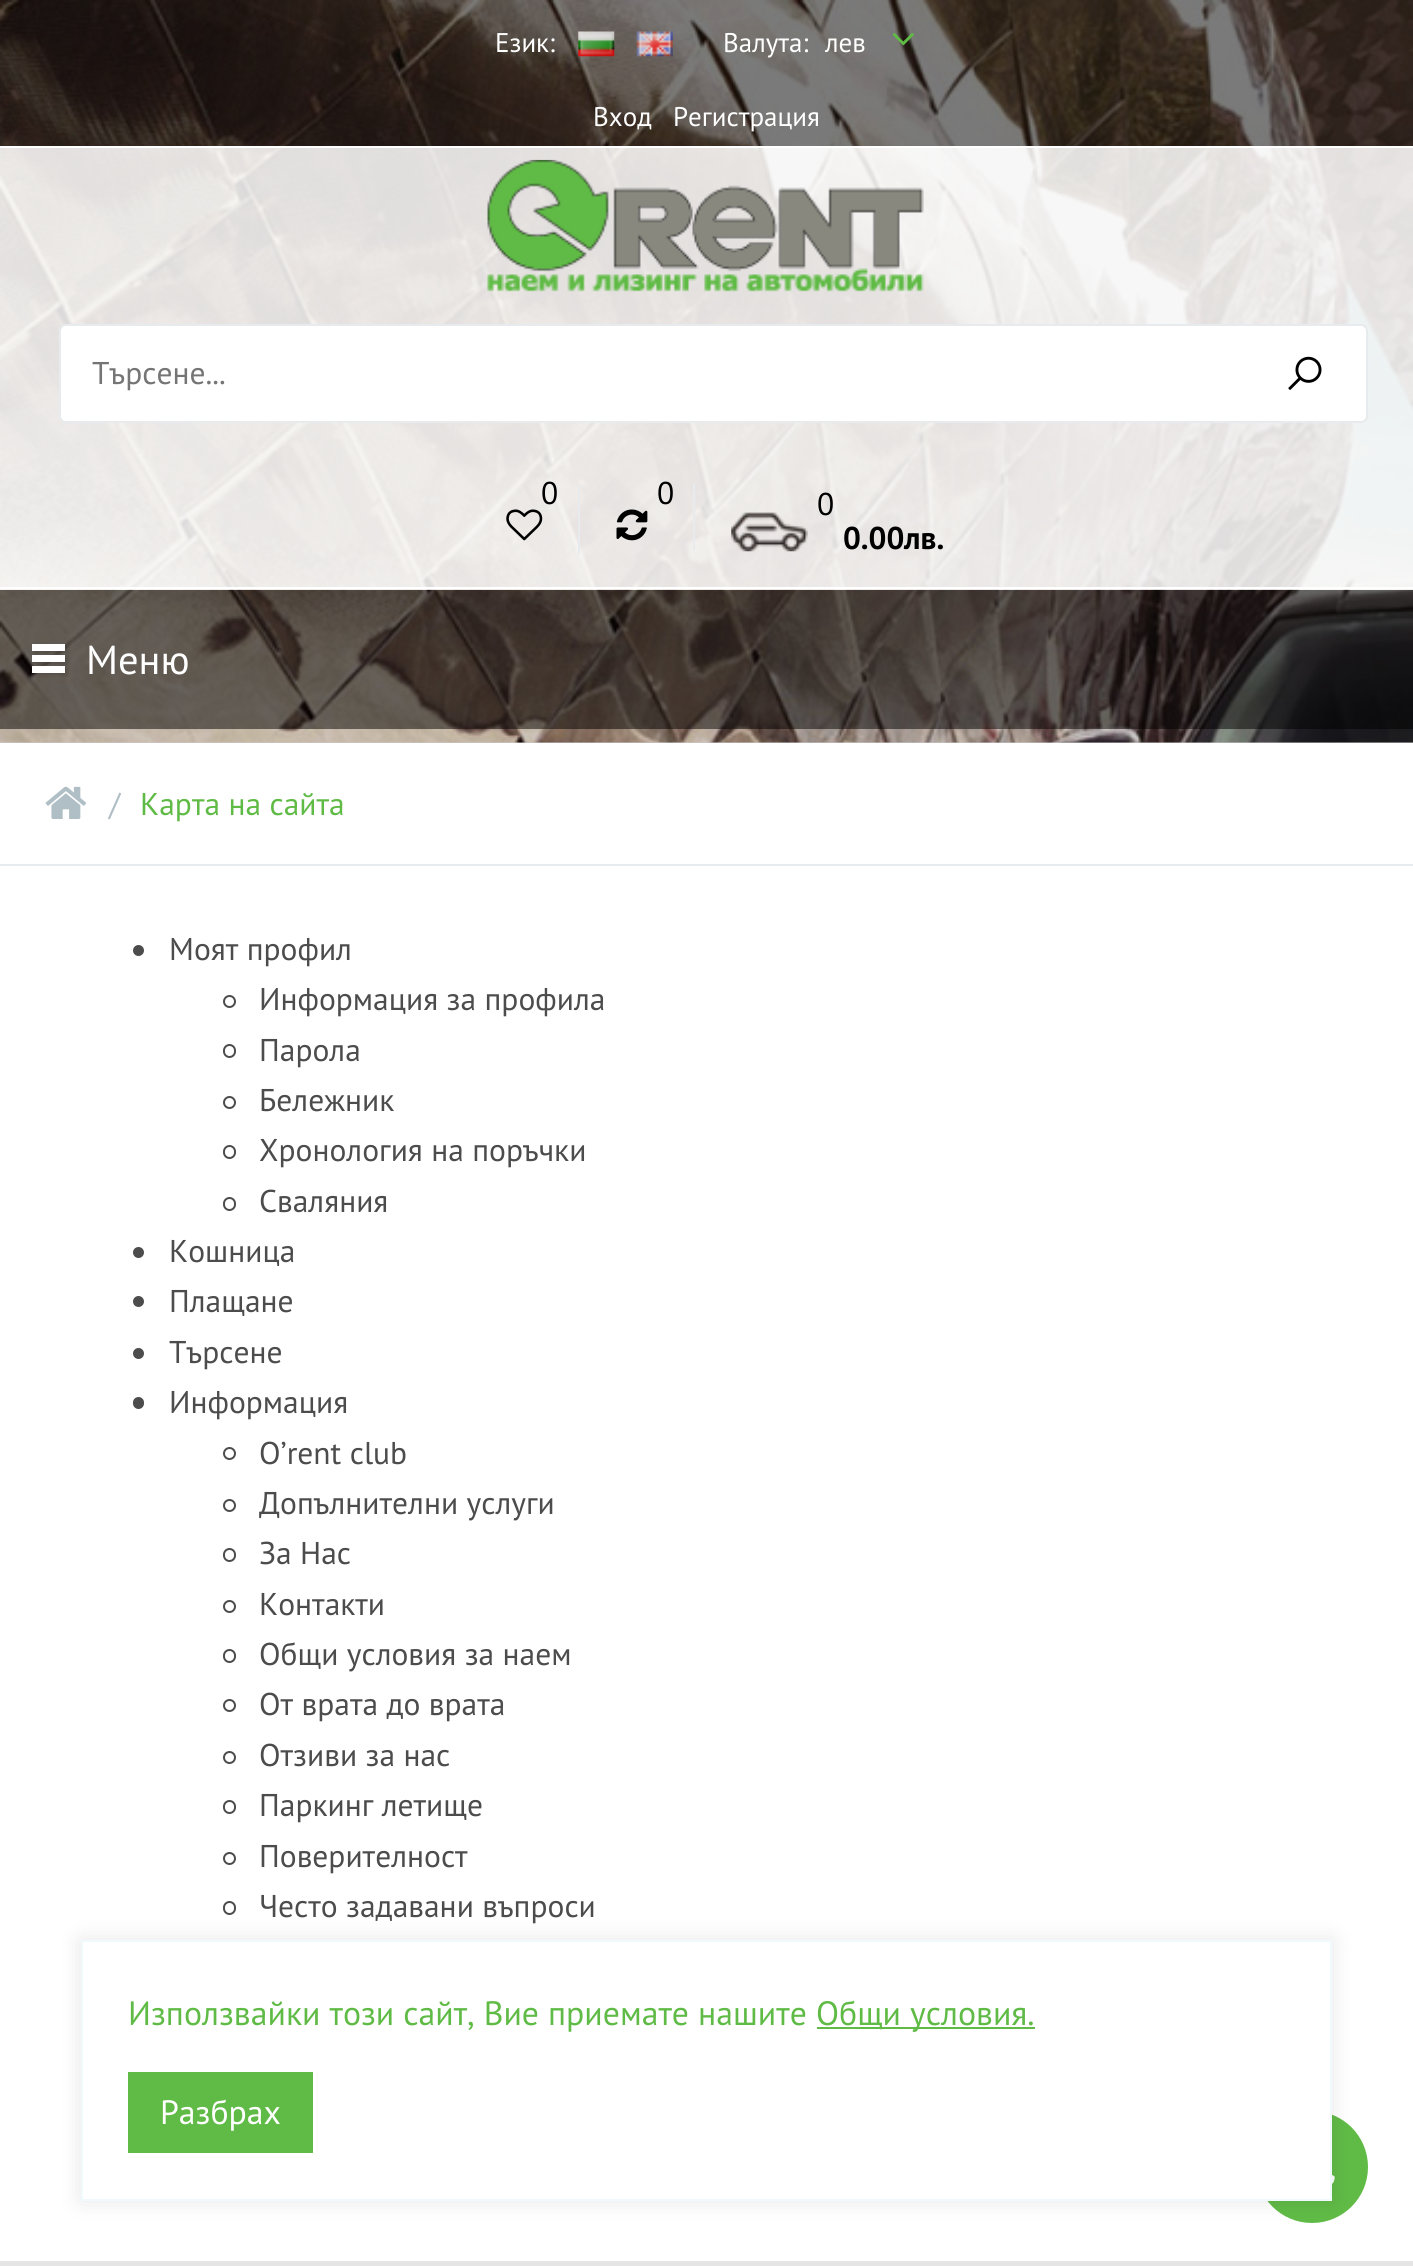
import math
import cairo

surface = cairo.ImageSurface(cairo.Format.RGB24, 1413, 2266)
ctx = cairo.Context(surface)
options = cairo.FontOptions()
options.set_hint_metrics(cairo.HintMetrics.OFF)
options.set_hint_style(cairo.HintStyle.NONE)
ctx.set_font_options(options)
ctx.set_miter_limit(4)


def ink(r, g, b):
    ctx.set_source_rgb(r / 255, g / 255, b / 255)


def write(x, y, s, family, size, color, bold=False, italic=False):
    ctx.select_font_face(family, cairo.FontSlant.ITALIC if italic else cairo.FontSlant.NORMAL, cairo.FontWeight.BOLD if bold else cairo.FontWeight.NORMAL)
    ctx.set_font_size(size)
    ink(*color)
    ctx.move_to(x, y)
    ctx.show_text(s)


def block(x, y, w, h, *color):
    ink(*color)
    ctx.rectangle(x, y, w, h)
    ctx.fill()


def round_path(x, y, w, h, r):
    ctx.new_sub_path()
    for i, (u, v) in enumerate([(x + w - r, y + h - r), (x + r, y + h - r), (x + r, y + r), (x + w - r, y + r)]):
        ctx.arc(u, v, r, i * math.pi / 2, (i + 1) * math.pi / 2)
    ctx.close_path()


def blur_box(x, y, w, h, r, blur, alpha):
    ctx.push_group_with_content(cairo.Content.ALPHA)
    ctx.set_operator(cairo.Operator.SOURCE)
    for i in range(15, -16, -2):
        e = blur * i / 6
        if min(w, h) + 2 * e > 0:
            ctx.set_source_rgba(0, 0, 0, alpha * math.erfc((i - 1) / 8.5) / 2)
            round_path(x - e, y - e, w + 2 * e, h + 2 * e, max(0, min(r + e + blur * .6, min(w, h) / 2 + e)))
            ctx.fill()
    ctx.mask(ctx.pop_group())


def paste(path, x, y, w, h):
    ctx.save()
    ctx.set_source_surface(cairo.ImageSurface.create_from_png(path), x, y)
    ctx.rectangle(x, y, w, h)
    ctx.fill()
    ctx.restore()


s1 = dict(family="PT Sans", size=27, color=(255, 255, 255))
s2 = dict(family="PT Sans", size=31.5, color=(117, 117, 117))
s3 = dict(family="PT Sans", size=31.5, color=(0, 0, 0))
s4 = dict(family="PT Sans", size=31.5, color=(0, 0, 0), bold=True)
s5 = dict(family="PT Sans", size=40.5, color=(255, 255, 255))
s6 = dict(family="PT Sans", size=31.5, color=(176, 190, 197))
s7 = dict(family="PT Sans", size=31.5, color=(96, 187, 70))
s8 = dict(family="PT Sans", size=31.5, color=(76, 76, 76))
s9 = dict(family="PT Sans", size=33.75, color=(96, 187, 70))
s10 = dict(family="PT Sans", size=33.75, color=(255, 255, 255))

ink(255, 255, 255)
ctx.paint()
block(0, 742, 1413, 1, 204, 204, 204)
paste("pic1.png", 0, 0, 1413, 743)
ctx.set_source_rgba(0, 0, 0, 0.4)
ctx.rectangle(0, 0, 1413, 146)
ctx.fill()
write(495, 52, "Език:", **s1)
paste("pic2.png", 578, 31, 37, 26)
paste("pic3.png", 636, 31, 37, 26)
write(723, 52, "Валута:", **s1)
write(825, 52, "лев", **s1)
paste("pic4.png", 892, 33, 22, 13)
write(593, 126, "Вход", **s1)
write(673, 126, "Регистрация", **s1)
ctx.set_source_rgba(1, 1, 1, 0.85)
ctx.rectangle(0, 148, 1413, 442)
ctx.fill()
block(0, 146, 1413, 2, 255, 255, 255)
paste("pic5.png", 487, 159, 437, 133)
round_path(60, 325, 1307, 97, 6)
ctx.fill_preserve()
ink(231, 235, 237)
ctx.stroke()
write(92, 384, "Търсене...", **s2)
paste("pic6.png", 1288, 356, 34, 34)
write(541, 504, "0", **s3)
paste("pic7.png", 506, 509, 37, 32)
block(578, 486, 2, 68, 231, 235, 237)
write(657, 504, "0", **s3)
paste("pic8.png", 616, 509, 32, 32)
block(693, 484, 2, 67, 231, 235, 237)
write(817, 515, "0", **s3)
paste("pic9.png", 731, 512, 77, 40)
write(843, 549, "0.00лв.", **s4)
block(0, 587, 1413, 2, 255, 255, 255)
ctx.set_source_rgba(0, 0, 0, 0.5)
ctx.rectangle(0, 590, 1413, 139)
ctx.fill()
ink(0, 0, 0)
blur_box(34, 646, 34, 7, 0, 2, 0.15)
block(32, 644, 33, 7, 255, 255, 255)
ink(0, 0, 0)
blur_box(34, 657, 34, 7, 0, 2, 0.15)
block(32, 655, 33, 7, 255, 255, 255)
ink(0, 0, 0)
blur_box(34, 668, 34, 7, 0, 2, 0.15)
block(32, 666, 33, 7, 255, 255, 255)
write(86, 674, "Меню", **s5)
block(0, 864, 1413, 2, 231, 235, 237)
paste("pic10.png", 45, 786, 41, 33)
write(109, 815, "/", **s6)
write(140, 815, "Карта на сайта", **s7)
ink(76, 76, 76)
ctx.new_path()
ctx.arc(138.5, 950.5, 5.5, 0, 2 * math.pi)
ctx.fill()
write(169, 960, "Моят профил", **s8)
ctx.new_path()
ctx.arc(229.5, 1001.5, 5.5, 0, 2 * math.pi)
ctx.stroke()
write(259, 1010, "Информация за профила", **s8)
round_path(224, 1045, 11, 12, 5.5)
ctx.stroke()
write(259, 1061, "Парола", **s8)
ctx.new_path()
ctx.arc(229.5, 1102.5, 5.5, 0, 2 * math.pi)
ctx.stroke()
write(259, 1111, "Бележник", **s8)
round_path(224, 1146, 11, 12, 5.5)
ctx.stroke()
write(259, 1161, "Хронология на поръчки", **s8)
round_path(224, 1198, 11, 12, 5.5)
ctx.stroke()
write(259, 1212, "Сваляния", **s8)
ctx.new_path()
ctx.arc(138.5, 1252.5, 5.5, 0, 2 * math.pi)
ctx.fill()
write(169, 1262, "Кошница", **s8)
ctx.new_path()
ctx.arc(138.5, 1301.5, 5.5, 0, 2 * math.pi)
ctx.fill()
write(169, 1312, "Плащане", **s8)
ctx.new_path()
ctx.arc(138.5, 1353.5, 5.5, 0, 2 * math.pi)
ctx.fill()
write(169, 1363, "Търсене", **s8)
round_path(133, 1397, 11, 12, 5.5)
ctx.fill()
write(169, 1413, "Информация", **s8)
ctx.new_path()
ctx.arc(229.5, 1453.5, 5.5, 0, 2 * math.pi)
ctx.stroke()
write(259, 1464, "O’rent club", **s8)
ctx.new_path()
ctx.arc(229.5, 1505.5, 5.5, 0, 2 * math.pi)
ctx.stroke()
write(259, 1514, "Допълнителни услуги", **s8)
round_path(224, 1549, 11, 12, 5.5)
ctx.stroke()
write(259, 1564, "За Нас", **s8)
ctx.new_path()
ctx.arc(229.5, 1606.5, 5.5, 0, 2 * math.pi)
ctx.stroke()
write(259, 1615, "Контакти", **s8)
round_path(224, 1650, 11, 12, 5.5)
ctx.stroke()
write(259, 1665, "Общи условия за наем", **s8)
ctx.new_path()
ctx.arc(229.5, 1705.5, 5.5, 0, 2 * math.pi)
ctx.stroke()
write(259, 1715, "От врата до врата", **s8)
ctx.new_path()
ctx.arc(229.5, 1757.5, 5.5, 0, 2 * math.pi)
ctx.stroke()
write(259, 1766, "Отзиви за нас", **s8)
round_path(224, 1801, 11, 12, 5.5)
ctx.stroke()
write(259, 1816, "Паркинг летище", **s8)
ctx.new_path()
ctx.arc(229.5, 1858.5, 5.5, 0, 2 * math.pi)
ctx.stroke()
write(259, 1867, "Поверителност", **s8)
round_path(224, 1902, 11, 12, 5.5)
ctx.stroke()
write(259, 1917, "Често задавани въпроси", **s8)
ink(96, 187, 70)
ctx.new_path()
ctx.arc(1312, 2167, 56, 0, 2 * math.pi)
ctx.fill()
paste("pic11.png", 1332, 2174, 3, 10)
block(0, 2261, 1413, 5, 229, 229, 229)
ink(0, 0, 0)
blur_box(81, 1940, 1251, 261, 0, 11, 0.1)
ink(255, 255, 255)
ctx.rectangle(82, 1941, 1249, 259)
ctx.fill_preserve()
ink(240, 250, 253)
ctx.stroke()
write(128, 2025, "Използвайки този сайт, Вие приемате нашите", **s9)
block(817, 2027, 218, 2, 96, 187, 70)
write(816, 2025, "Общи условия.", **s9)
block(128, 2072, 185, 81, 96, 187, 70)
write(160, 2124, "Разбрах", **s10)
surface.write_to_png("screenshot.png")
